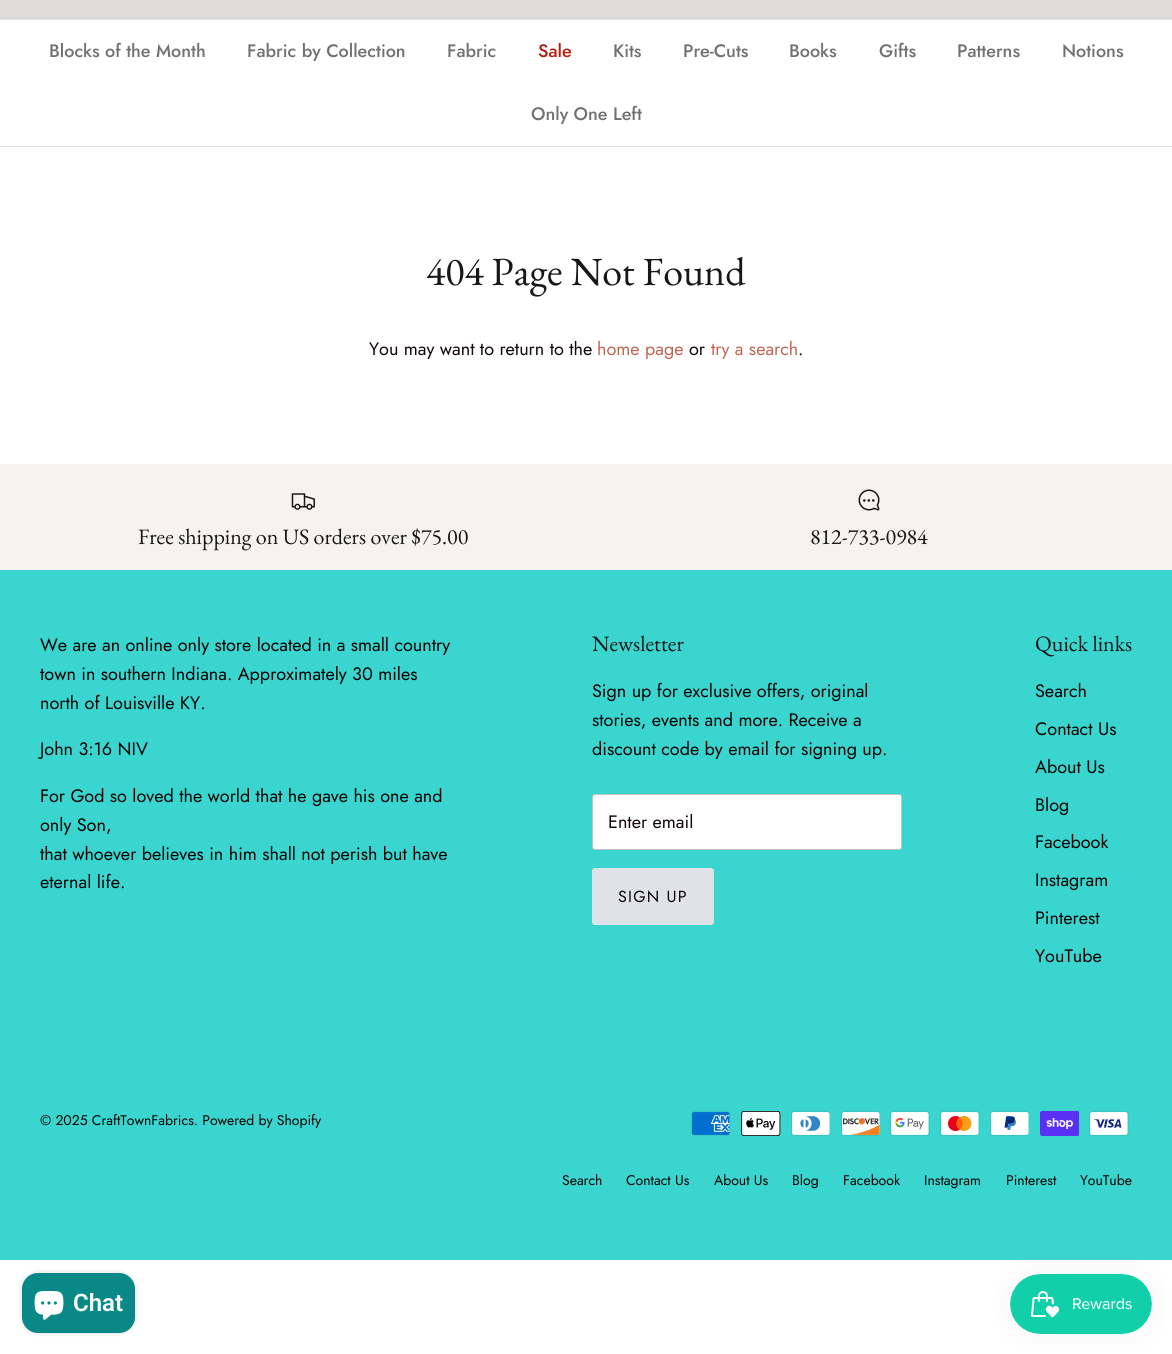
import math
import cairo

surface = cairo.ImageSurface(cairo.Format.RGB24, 1172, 1354)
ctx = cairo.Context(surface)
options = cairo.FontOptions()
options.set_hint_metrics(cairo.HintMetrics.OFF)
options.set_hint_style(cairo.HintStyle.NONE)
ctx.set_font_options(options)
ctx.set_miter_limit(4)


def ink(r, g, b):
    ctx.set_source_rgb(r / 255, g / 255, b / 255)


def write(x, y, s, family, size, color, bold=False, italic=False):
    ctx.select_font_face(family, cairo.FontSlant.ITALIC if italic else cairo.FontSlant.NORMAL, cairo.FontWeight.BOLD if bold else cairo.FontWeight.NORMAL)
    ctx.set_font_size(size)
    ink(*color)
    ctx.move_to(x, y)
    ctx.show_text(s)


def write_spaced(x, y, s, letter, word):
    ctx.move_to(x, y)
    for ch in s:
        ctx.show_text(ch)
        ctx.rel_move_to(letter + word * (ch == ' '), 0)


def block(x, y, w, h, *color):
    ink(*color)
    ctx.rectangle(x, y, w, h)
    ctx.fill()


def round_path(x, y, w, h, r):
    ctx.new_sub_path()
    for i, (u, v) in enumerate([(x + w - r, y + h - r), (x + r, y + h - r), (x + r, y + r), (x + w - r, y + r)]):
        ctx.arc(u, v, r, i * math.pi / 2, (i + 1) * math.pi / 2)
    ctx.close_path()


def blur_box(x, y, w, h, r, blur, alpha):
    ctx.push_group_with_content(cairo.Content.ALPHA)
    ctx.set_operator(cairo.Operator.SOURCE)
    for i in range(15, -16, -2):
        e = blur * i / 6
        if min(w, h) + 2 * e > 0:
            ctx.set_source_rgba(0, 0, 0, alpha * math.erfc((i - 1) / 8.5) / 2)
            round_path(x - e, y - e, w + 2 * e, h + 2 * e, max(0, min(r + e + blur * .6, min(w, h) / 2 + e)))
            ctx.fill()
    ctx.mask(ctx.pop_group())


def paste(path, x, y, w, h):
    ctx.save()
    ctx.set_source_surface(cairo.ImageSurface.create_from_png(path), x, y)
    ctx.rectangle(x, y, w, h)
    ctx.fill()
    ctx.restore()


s1 = dict(family="Jost Medium", size=18, color=(112, 113, 115))
s2 = dict(family="Jost Medium", size=18, color=(182, 29, 15))
s3 = dict(family="EB Garamond", size=40, color=(23, 23, 23))
s4 = dict(family="Jost", size=18, color=(17, 7, 7))
s5 = dict(family="Jost", size=18, color=(193, 100, 82))
s6 = dict(family="EB Garamond", size=22, color=(23, 23, 23))
s7 = dict(family="Jost", size=18, color=(3, 3, 3))
s8 = dict(family="Jost", size=14, color=(3, 3, 3))
s9 = dict(family="Roboto SemiBold", size=24, color=(255, 255, 255))

ink(255, 255, 255)
ctx.paint()
block(0, 0, 1172, 19, 221, 218, 218)
block(0, 19, 1172, 1, 223, 227, 232)
block(0, 146, 1172, 1, 223, 227, 232)
write(49, 57, "Blocks of the Month", **s1)
write(247, 57, "Fabric by Collection", **s1)
write(447, 57, "Fabric", **s1)
write(538, 57, "Sale", **s2)
write(613, 57, "Kits", **s1)
write(683, 57, "Pre-Cuts", **s1)
write(789, 57, "Books", **s1)
write(879, 57, "Gifts", **s1)
write(957, 57, "Patterns", **s1)
write(1062, 57, "Notions", **s1)
write(531, 120, "Only One Left", **s1)
write(426, 285, "404 Page Not Found", **s3)
write(369, 355, "You may want to return to the", **s4)
write(597, 355, "home page", **s5)
write(689, 355, "or", **s4)
write(711, 355, "try a search", **s5)
write(798, 355, ".", **s4)
block(0, 570, 1172, 690, 59, 213, 208)
block(0, 464, 1172, 106, 247, 241, 240)
paste("pic1.png", 291, 493, 24, 17)
write(138, 544, "Free shipping on US orders over $75.00", **s6)
paste("pic2.png", 858, 489, 22, 22)
write(810, 544, "812-733-0984", **s6)
write(40, 651, "We are an online only store located in a small country", **s7)
write(40, 680, "town in southern Indiana. Approximately 30 miles", **s7)
write(40, 709, "north of Louisville KY.", **s7)
write(40, 755, "John 3:16 NIV", **s7)
write(40, 802, "For God so loved the world that he gave his one and", **s7)
write(40, 831, "only Son,", **s7)
write(40, 860, "that whoever believes in him shall not perish but have", **s7)
write(40, 888, "eternal life.", **s7)
write(592, 651, "Newsletter", **s6)
write(592, 697, "Sign up for exclusive offers, original", **s7)
write(592, 726, "stories, events and more. Receive a", **s7)
write(592, 755, "discount code by email for signing up.", **s7)
ink(255, 255, 255)
round_path(592.5, 794.5, 309, 55, 2.5)
ctx.fill_preserve()
ink(196, 193, 193)
ctx.set_line_width(1)
ctx.stroke()
write(608, 828, "Enter email", **s4)
ink(223, 227, 232)
round_path(592.5, 868.5, 121, 56, 2.5)
ctx.fill_preserve()
ctx.stroke()
ctx.set_font_size(16)
ink(17, 7, 7)
write_spaced(618, 902, "SIGN UP", 1.25, 0)
write(1035, 651, "Quick links", **s6)
write(1035, 697, "Search", **s7)
write(1035, 735, "Contact Us", **s7)
write(1035, 773, "About Us", **s7)
write(1035, 811, "Blog", **s7)
write(1035, 848, "Facebook", **s7)
write(1035, 886, "Instagram", **s7)
write(1035, 924, "Pinterest", **s7)
write(1035, 962, "YouTube", **s7)
write(40, 1125, "© 2025 CraftTownFabrics. Powered by Shopify", **s8)
paste("pic3.png", 691, 1111, 40, 25)
paste("pic4.png", 741, 1111, 40, 25)
paste("pic5.png", 791, 1111, 39, 25)
paste("pic6.png", 841, 1111, 39, 25)
paste("pic7.png", 890, 1111, 40, 25)
paste("pic8.png", 940, 1111, 40, 25)
paste("pic9.png", 990, 1111, 39, 25)
paste("pic10.png", 1040, 1111, 39, 25)
paste("pic11.png", 1089, 1111, 40, 25)
write(562, 1185, "Search", **s8)
write(626, 1185, "Contact Us", **s8)
write(714, 1185, "About Us", **s8)
write(792, 1185, "Blog", **s8)
write(843, 1185, "Facebook", **s8)
write(924, 1185, "Instagram", **s8)
write(1006, 1185, "Pinterest", **s8)
write(1080, 1185, "YouTube", **s8)
ink(0, 0, 0)
blur_box(22, 1273, 113, 60, 16, 2.5, 0.15)
ink(9, 136, 136)
round_path(22, 1273, 113, 60, 16)
ctx.fill()
paste("pic12.png", 34, 1291, 30, 29)
write(73, 1311, "Chat", **s9)
ink(0, 0, 0)
blur_box(1010, 1274, 142, 60, 30, 12.5, 0.05)
paste("pic13.png", 1010, 1274, 142, 60)
surface.write_to_png("screenshot.png")
